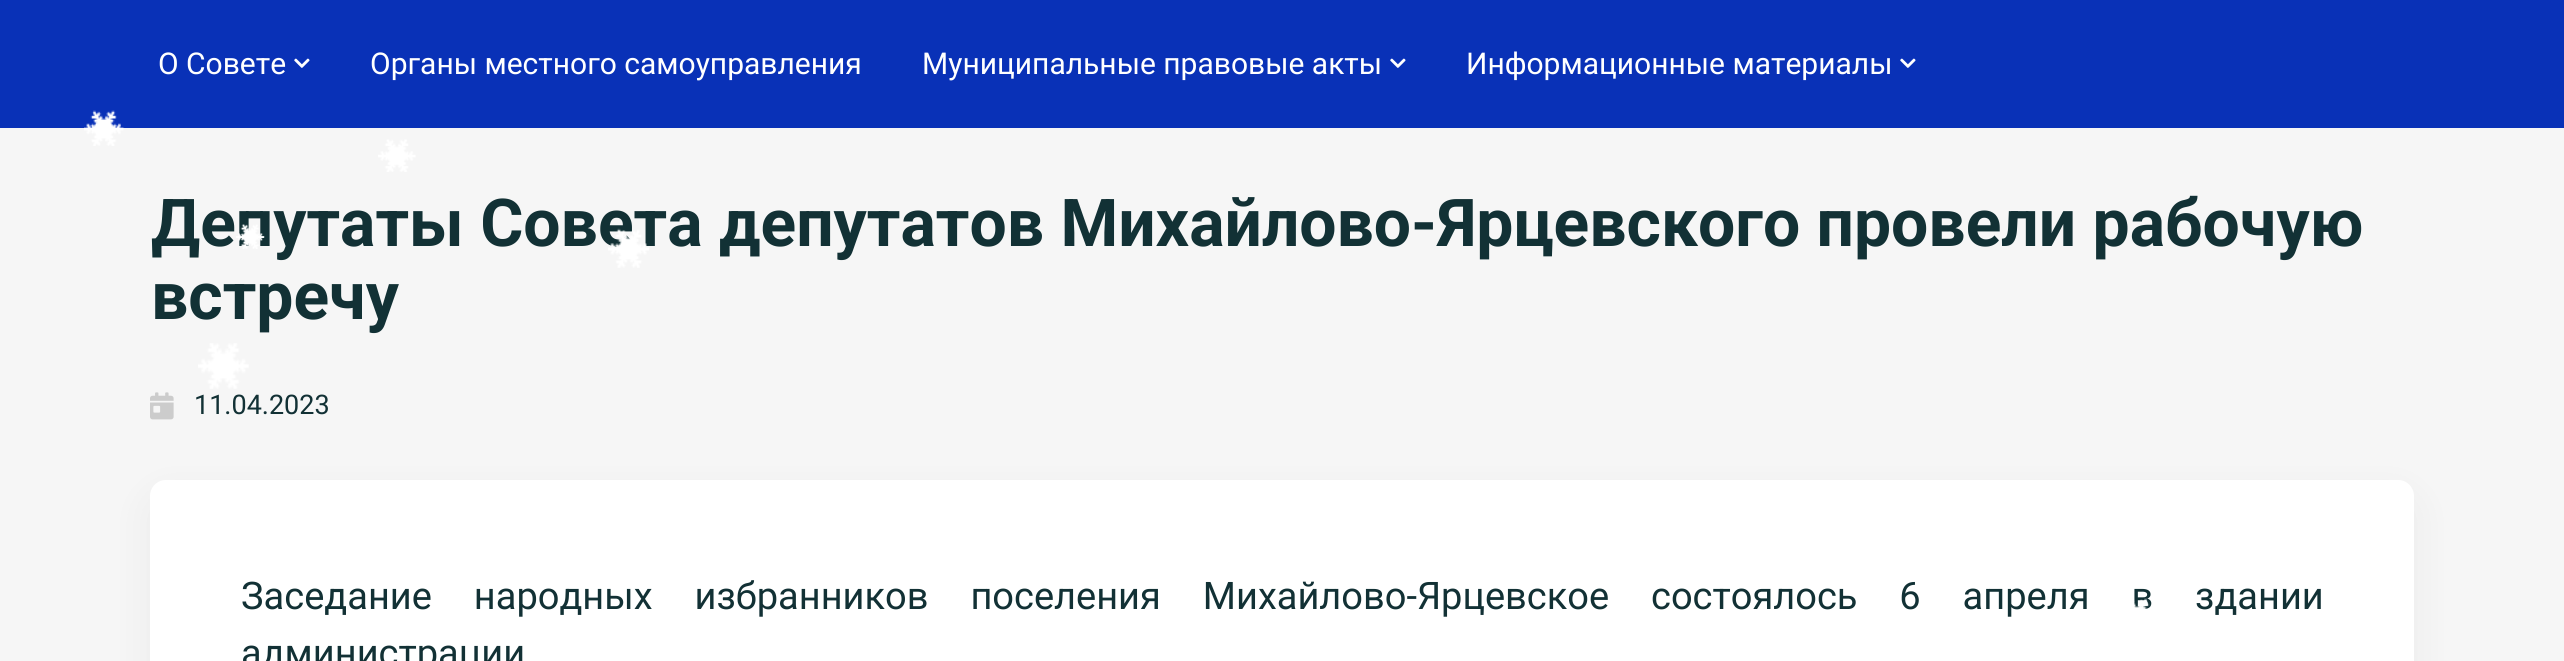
import math
import cairo

surface = cairo.ImageSurface(cairo.Format.RGB24, 2564, 661)
ctx = cairo.Context(surface)
options = cairo.FontOptions()
options.set_hint_metrics(cairo.HintMetrics.OFF)
options.set_hint_style(cairo.HintStyle.NONE)
ctx.set_font_options(options)
ctx.set_miter_limit(4)


def ink(r, g, b):
    ctx.set_source_rgb(r / 255, g / 255, b / 255)


def write(x, y, s, family, size, color, bold=False, italic=False):
    ctx.select_font_face(family, cairo.FontSlant.ITALIC if italic else cairo.FontSlant.NORMAL, cairo.FontWeight.BOLD if bold else cairo.FontWeight.NORMAL)
    ctx.set_font_size(size)
    ink(*color)
    ctx.move_to(x, y)
    ctx.show_text(s)


def write_spaced(x, y, s, letter, word):
    ctx.move_to(x, y)
    for ch in s:
        ctx.show_text(ch)
        ctx.rel_move_to(letter + word * (ch == ' '), 0)


def block(x, y, w, h, *color):
    ink(*color)
    ctx.rectangle(x, y, w, h)
    ctx.fill()


def round_path(x, y, w, h, r):
    ctx.new_sub_path()
    for i, (u, v) in enumerate([(x + w - r, y + h - r), (x + r, y + h - r), (x + r, y + r), (x + w - r, y + r)]):
        ctx.arc(u, v, r, i * math.pi / 2, (i + 1) * math.pi / 2)
    ctx.close_path()


def blur_box(x, y, w, h, r, blur, alpha):
    ctx.push_group_with_content(cairo.Content.ALPHA)
    ctx.set_operator(cairo.Operator.SOURCE)
    for i in range(15, -16, -2):
        e = blur * i / 6
        if min(w, h) + 2 * e > 0:
            ctx.set_source_rgba(0, 0, 0, alpha * math.erfc((i - 1) / 8.5) / 2)
            round_path(x - e, y - e, w + 2 * e, h + 2 * e, max(0, min(r + e + blur * .6, min(w, h) / 2 + e)))
            ctx.fill()
    ctx.mask(ctx.pop_group())


def paste(path, x, y, w, h):
    ctx.save()
    ctx.set_source_surface(cairo.ImageSurface.create_from_png(path), x, y)
    ctx.rectangle(x, y, w, h)
    ctx.fill()
    ctx.restore()


s1 = dict(family="Roboto", size=30, color=(255, 255, 255))
s2 = dict(family="Roboto", size=66, color=(18, 49, 53), bold=True)
s3 = dict(family="Roboto", size=27, color=(18, 49, 53))
s4 = dict(family="Roboto", size=38, color=(18, 49, 53))

ink(246, 246, 246)
ctx.paint()
block(0, 0, 2564, 128, 9, 49, 183)
write(158, 74, "О Совете", **s1)
paste("pic1.png", 294, 58, 16, 10)
write(370, 74, "Органы местного самоуправления", **s1)
write(922, 74, "Муниципальные правовые акты", **s1)
paste("pic1.png", 1390, 58, 16, 10)
write(1466, 74, "Информационные материалы", **s1)
paste("pic1.png", 1900, 58, 16, 10)
paste("pic2.png", 84, 110, 41, 36)
paste("pic3.png", 378, 139, 38, 33)
write(151, 246, "Депутаты Совета депутатов Михайлово-Ярцевского провели рабочую", **s2)
write(151, 319, "встречу", **s2)
paste("pic4.png", 150, 392, 24, 28)
write(194, 414, "11.04.2023", **s3)
ink(0, 0, 0)
blur_box(150, 496, 2264, 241, 16, 20, 0.05)
ink(255, 255, 255)
round_path(150, 480, 2264, 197, 16)
ctx.fill()
ctx.set_font_size(38)
ink(18, 49, 53)
write_spaced(241, 609, "Заседание народных избранников поселения Михайлово-Ярцевское состоялось 6 апреля в здании", 0, 32.5)
write(241, 666, "администрации", **s4)
paste("pic5.png", 236, 224, 29, 25)
paste("pic6.png", 608, 228, 41, 40)
paste("pic7.png", 198, 343, 51, 46)
paste("pic8.png", 2133, 598, 17, 11)
surface.write_to_png("screenshot.png")
